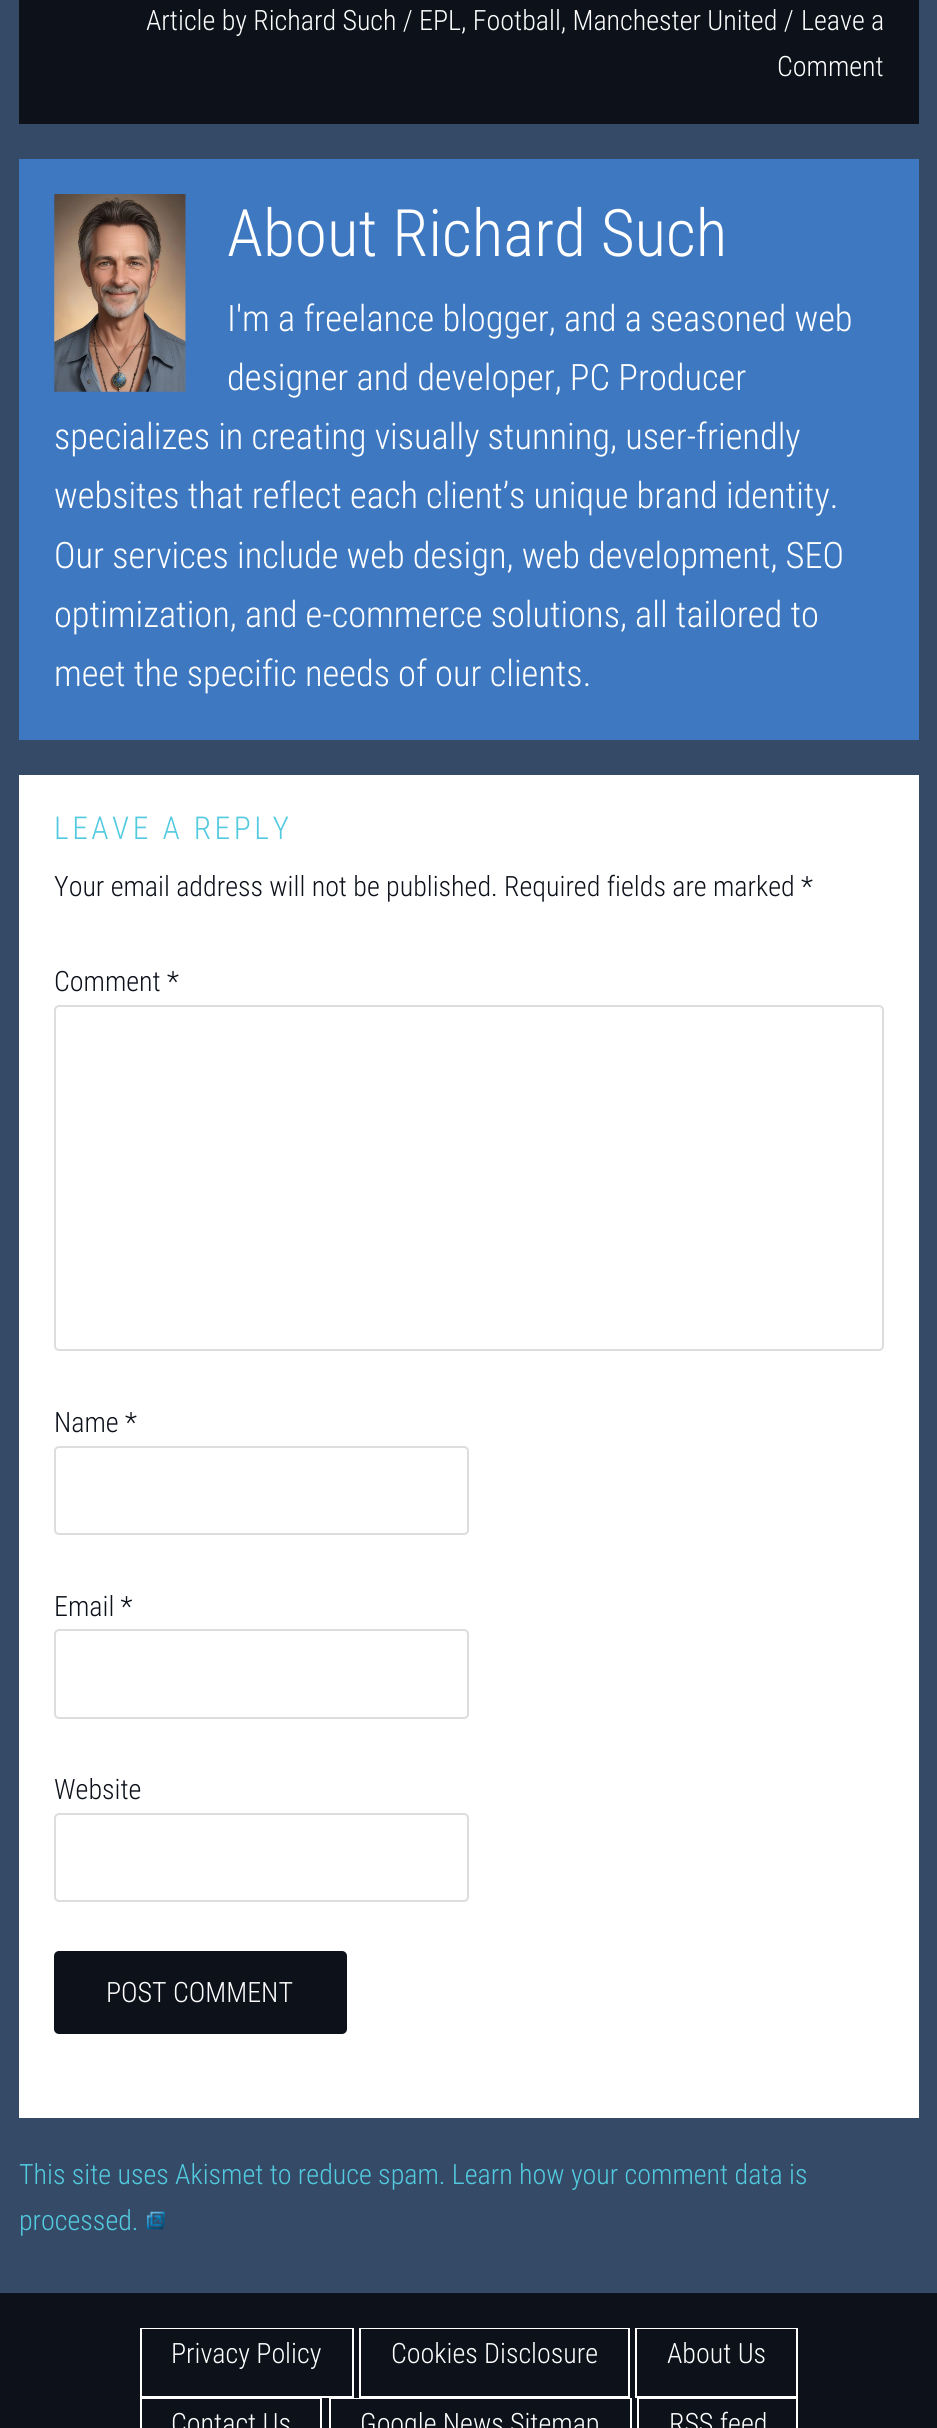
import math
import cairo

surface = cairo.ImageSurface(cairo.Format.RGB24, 937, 2428)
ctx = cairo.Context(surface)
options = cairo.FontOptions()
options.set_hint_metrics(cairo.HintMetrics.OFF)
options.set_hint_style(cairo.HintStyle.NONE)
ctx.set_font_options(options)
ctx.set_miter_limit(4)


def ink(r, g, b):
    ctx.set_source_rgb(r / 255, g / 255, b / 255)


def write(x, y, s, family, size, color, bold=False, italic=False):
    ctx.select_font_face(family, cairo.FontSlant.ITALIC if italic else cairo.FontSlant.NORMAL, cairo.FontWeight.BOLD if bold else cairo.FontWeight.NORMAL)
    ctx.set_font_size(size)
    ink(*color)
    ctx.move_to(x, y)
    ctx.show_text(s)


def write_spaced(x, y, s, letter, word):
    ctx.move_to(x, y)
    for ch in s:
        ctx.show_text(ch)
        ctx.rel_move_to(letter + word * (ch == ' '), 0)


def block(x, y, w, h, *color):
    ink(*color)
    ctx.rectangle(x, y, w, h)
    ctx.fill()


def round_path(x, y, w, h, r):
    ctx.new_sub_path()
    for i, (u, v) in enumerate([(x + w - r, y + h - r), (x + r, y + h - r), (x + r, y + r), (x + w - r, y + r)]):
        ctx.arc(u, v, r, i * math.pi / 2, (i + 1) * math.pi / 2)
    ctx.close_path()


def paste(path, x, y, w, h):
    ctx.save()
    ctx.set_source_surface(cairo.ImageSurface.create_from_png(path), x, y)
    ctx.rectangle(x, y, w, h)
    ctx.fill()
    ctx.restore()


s1 = dict(family="Roboto Condensed Light", size=28, color=(255, 255, 255))
s2 = dict(family="Roboto Condensed Light", size=65.5, color=(255, 255, 255))
s3 = dict(family="Roboto Condensed Light", size=36.4, color=(255, 255, 255))
s4 = dict(family="Roboto Condensed Light", size=28, color=(12, 17, 26))
s5 = dict(family="Roboto Condensed Light", size=28, color=(83, 202, 223))

ink(52, 74, 102)
ctx.paint()
block(19, 0, 900, 124, 12, 17, 26)
write(146, 30, "Article by Richard Such / EPL, Football, Manchester United /", **s1)
write(801, 30, "Leave a", **s1)
write(777, 76, "Comment", **s1)
block(19, 159, 900, 581, 61, 120, 193)
paste("pic1.png", 54, 194, 132, 198)
write(227, 256, "About Richard Such", **s2)
write(227, 331, "I'm a freelance blogger, and a seasoned web", **s3)
write(227, 390, "designer and developer, PC Producer", **s3)
write(54, 449, "specializes in creating visually stunning, user-friendly", **s3)
write(54, 508, "websites that reflect each client’s unique brand identity.", **s3)
write(54, 568, "Our services include web design, web development, SEO", **s3)
write(54, 627, "optimization, and e-commerce solutions, all tailored to", **s3)
write(54, 686, "meet the specific needs of our clients.", **s3)
block(19, 775, 900, 1343, 255, 255, 255)
ctx.set_font_size(31.5)
ink(83, 202, 223)
write_spaced(54, 839, "LEAVE A REPLY", 3.5, 0)
write(54, 896, "Your email address will not be published. Required fields are marked *", **s4)
write(54, 991, "Comment *", **s4)
round_path(55, 1006, 828, 344, 4)
ink(221, 221, 221)
ctx.stroke()
write(54, 1432, "Name *", **s4)
round_path(55, 1447, 413, 87, 4)
ink(221, 221, 221)
ctx.stroke()
write(54, 1616, "Email *", **s4)
round_path(55, 1630, 413, 88, 4)
ink(221, 221, 221)
ctx.stroke()
write(54, 1799, "Website", **s4)
round_path(55, 1814, 413, 87, 4)
ink(221, 221, 221)
ctx.stroke()
ink(12, 17, 26)
round_path(54, 1951, 293, 83, 5)
ctx.fill()
write(106, 2002, "POST COMMENT", **s1)
write(19, 2184, "This site uses Akismet to reduce spam. Learn how your comment data is", **s5)
write(19, 2230, "processed.", **s5)
paste("pic2.png", 147, 2211, 18, 19)
block(0, 2293, 937, 135, 12, 17, 26)
ctx.rectangle(141, 2329, 212, 68)
ink(255, 255, 255)
ctx.stroke()
block(142, 2329, 210, 1, 12, 17, 26)
write(171, 2363, "Privacy Policy", **s1)
ctx.rectangle(360, 2329, 269, 68)
ctx.stroke()
block(361, 2329, 267, 1, 12, 17, 26)
write(391, 2363, "Cookies Disclosure", **s1)
ctx.rectangle(636, 2329, 161, 68)
ctx.stroke()
block(637, 2329, 159, 1, 12, 17, 26)
write(667, 2363, "About Us", **s1)
ctx.rectangle(141, 2399, 180, 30)
ctx.stroke()
block(142, 2399, 178, 1, 12, 17, 26)
write(171, 2433, "Contact Us", **s1)
ctx.rectangle(330, 2399, 301, 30)
ctx.stroke()
block(331, 2399, 299, 1, 12, 17, 26)
write(360, 2433, "Google News Sitemap", **s1)
ctx.rectangle(638, 2399, 159, 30)
ctx.stroke()
block(639, 2399, 157, 1, 12, 17, 26)
write(669, 2433, "RSS feed", **s1)
surface.write_to_png("screenshot.png")
